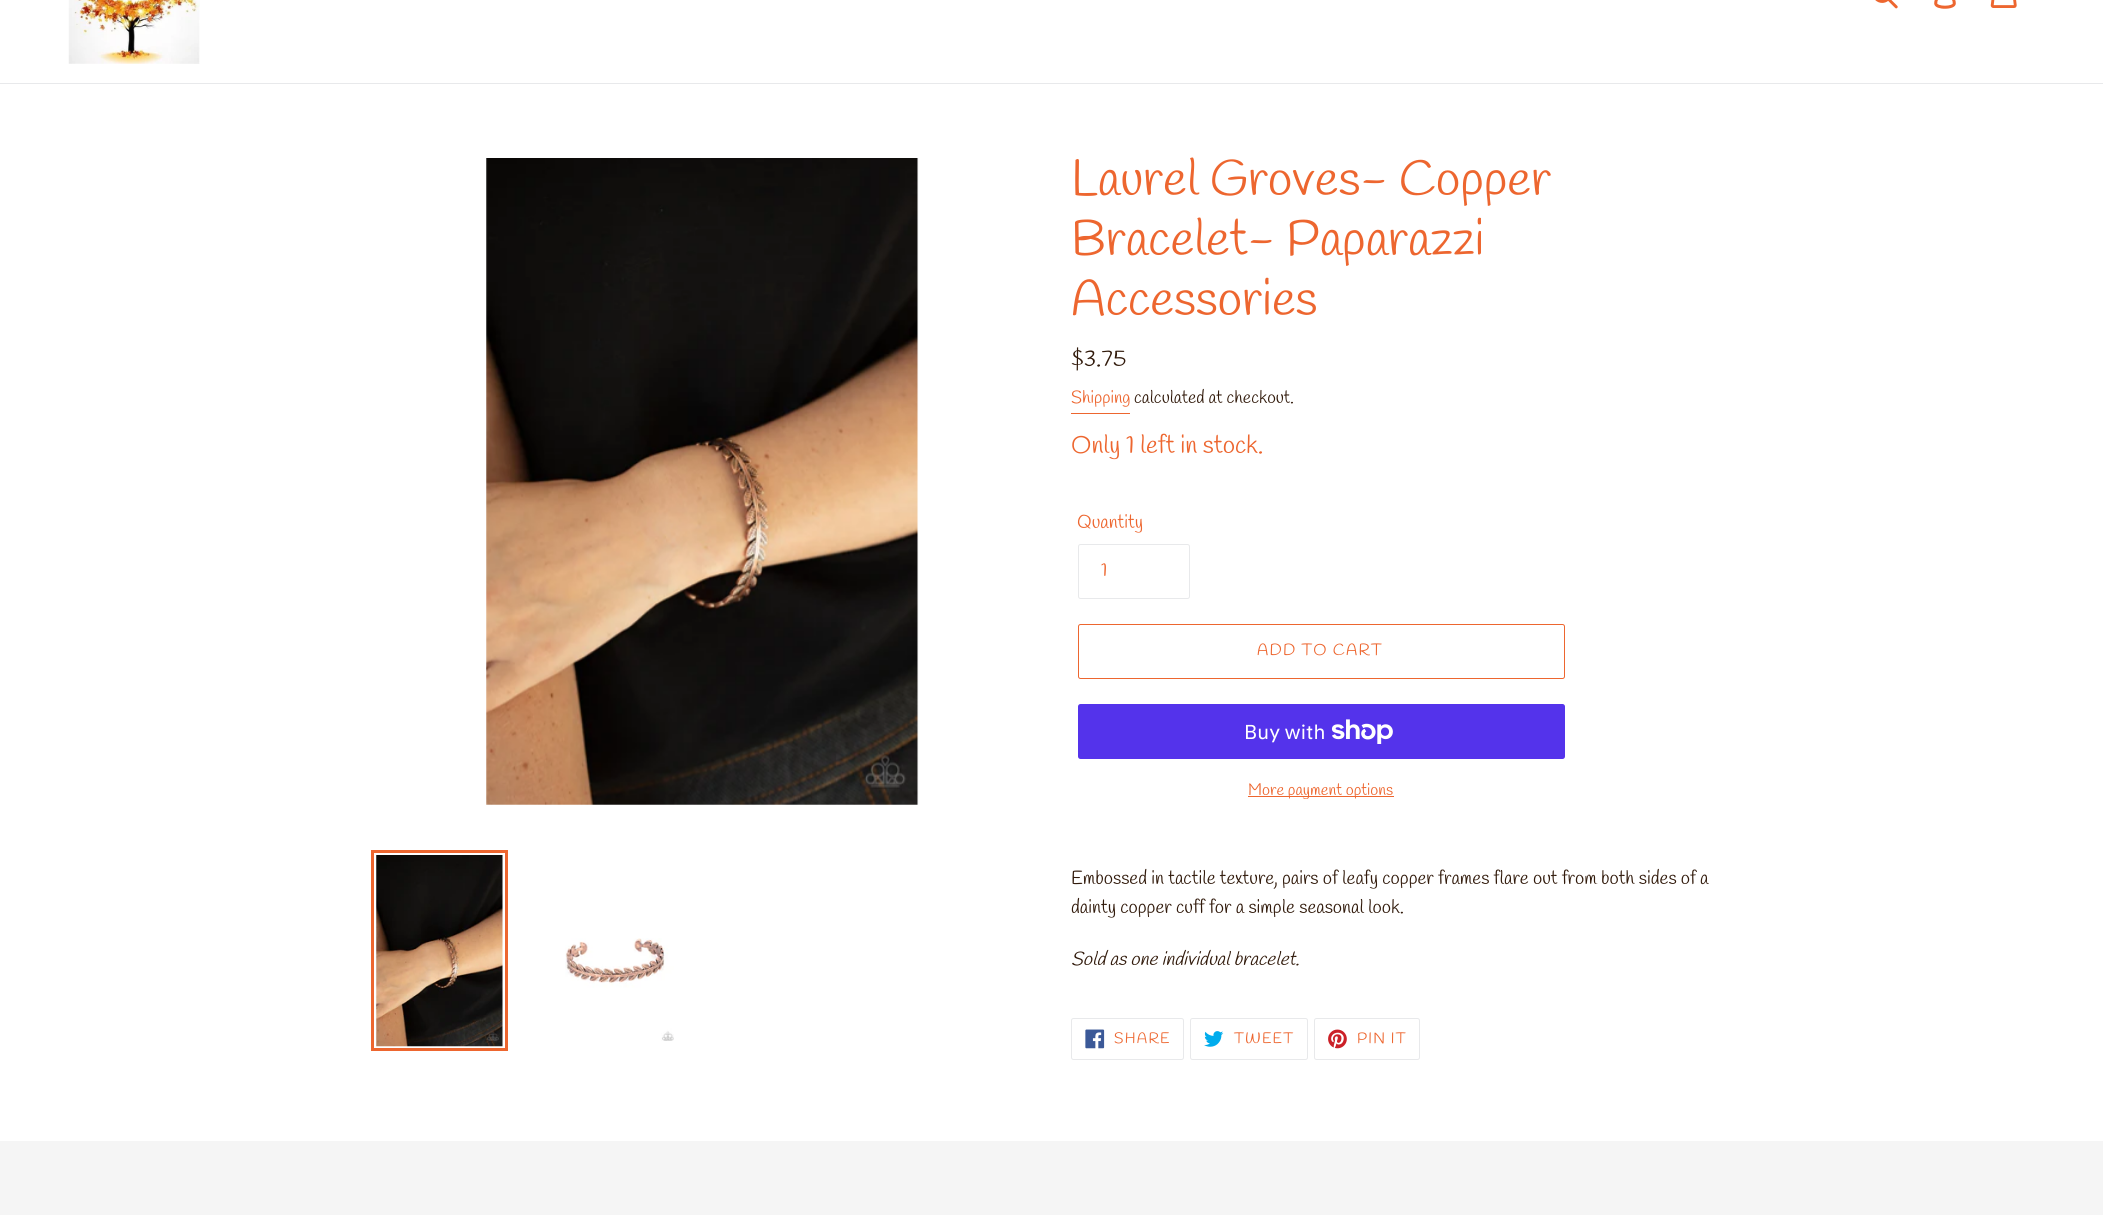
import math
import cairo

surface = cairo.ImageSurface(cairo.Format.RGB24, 2103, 1215)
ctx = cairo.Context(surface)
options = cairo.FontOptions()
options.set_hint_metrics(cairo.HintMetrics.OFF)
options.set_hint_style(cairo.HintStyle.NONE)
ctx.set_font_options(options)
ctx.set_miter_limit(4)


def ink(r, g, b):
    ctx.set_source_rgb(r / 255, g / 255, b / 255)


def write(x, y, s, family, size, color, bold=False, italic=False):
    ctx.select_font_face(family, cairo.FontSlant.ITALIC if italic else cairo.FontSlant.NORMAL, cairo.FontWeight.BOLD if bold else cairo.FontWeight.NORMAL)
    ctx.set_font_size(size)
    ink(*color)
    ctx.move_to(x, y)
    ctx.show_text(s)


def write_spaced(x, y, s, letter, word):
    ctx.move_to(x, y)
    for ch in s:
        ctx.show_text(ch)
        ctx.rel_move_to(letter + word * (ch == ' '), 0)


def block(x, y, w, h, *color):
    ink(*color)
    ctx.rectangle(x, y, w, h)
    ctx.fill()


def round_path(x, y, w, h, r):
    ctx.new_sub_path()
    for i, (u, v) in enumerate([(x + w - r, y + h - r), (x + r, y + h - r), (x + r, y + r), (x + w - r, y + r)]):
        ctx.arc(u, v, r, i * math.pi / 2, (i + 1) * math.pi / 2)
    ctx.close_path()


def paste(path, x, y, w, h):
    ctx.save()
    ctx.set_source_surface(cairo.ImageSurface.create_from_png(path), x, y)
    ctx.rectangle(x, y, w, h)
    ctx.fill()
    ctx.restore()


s1 = dict(family="Handlee", size=50, color=(237, 102, 47))
s2 = dict(family="Handlee", size=23.5, color=(49, 26, 11))
s3 = dict(family="Handlee", size=17.5, color=(237, 102, 47))
s4 = dict(family="Handlee", size=17.5, color=(49, 26, 11))
s5 = dict(family="Handlee", size=25, color=(237, 102, 47))
s6 = dict(family="Handlee", size=18.75, color=(237, 102, 47))
s7 = dict(family="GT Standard", size=20, color=(255, 255, 255))
s8 = dict(family="Handlee", size=16.25, color=(237, 102, 47))
s9 = dict(family="Handlee", size=18.75, color=(49, 26, 11))
s10 = dict(family="Handlee", size=18.75, color=(49, 26, 11), italic=True)

ink(255, 255, 255)
ctx.paint()
block(0, 83, 2103, 1, 232, 233, 235)
paste("pic1.png", 68, 0, 132, 64)
paste("pic2.png", 1875, 0, 23, 9)
paste("pic3.png", 1934, 0, 22, 9)
paste("pic4.png", 1990, 0, 27, 8)
paste("pic5.png", 486, 158, 433, 647)
ctx.rectangle(372.5, 851.5, 134, 198)
ink(237, 102, 47)
ctx.set_line_width(3)
ctx.stroke()
paste("pic6.png", 376, 855, 127, 192)
paste("pic7.png", 565, 938, 109, 103)
write(1071, 195, "Laurel Groves- Copper", **s1)
write(1071, 255, "Bracelet- Paparazzi", **s1)
write(1071, 315, "Accessories", **s1)
write(1071, 366, "$3.75", **s2)
write(1071, 403, "Shipping", **s3)
block(1071, 413, 59, 1, 237, 102, 47)
write(1134, 403, "calculated at checkout.", **s4)
write(1071, 453, "Only 1 left in stock.", **s5)
write(1077, 528, "Quantity", **s6)
round_path(1078.5, 544.5, 111, 54, 2)
ink(232, 233, 235)
ctx.set_line_width(1)
ctx.stroke()
write(1101, 576, "1", **s6)
round_path(1078.5, 624.5, 486, 54, 2)
ctx.stroke()
ctx.set_font_size(16.25)
write_spaced(1257, 655, "ADD TO CART", 1.25, 0)
ink(84, 51, 235)
round_path(1078, 704, 487, 55, 2.5)
ctx.fill()
write(1244, 739, "Buy with", **s7)
paste("pic8.png", 1331, 719, 62, 25)
block(1248, 796, 146, 1, 237, 102, 47)
write(1248, 795, "More payment options", **s8)
write(1071, 884, "Embossed in tactile texture, pairs of leafy copper frames flare out from both sides of a", **s9)
write(1071, 913, "dainty copper cuff for a simple seasonal look.", **s9)
write(1071, 965, "Sold as one individual bracelet.", **s10)
round_path(1071.5, 1018.5, 112, 41, 2)
ink(232, 233, 235)
ctx.stroke()
paste("pic9.png", 1085, 1029, 20, 20)
ctx.select_font_face("Handlee")
ctx.set_font_size(15)
ink(237, 102, 47)
write_spaced(1114, 1043, "SHARE", 1.25, 0)
round_path(1190.5, 1018.5, 117, 41, 2)
ink(232, 233, 235)
ctx.stroke()
paste("pic10.png", 1204, 1031, 20, 16)
ink(237, 102, 47)
write_spaced(1234, 1043, "TWEET", 1.25, 0)
round_path(1314.5, 1018.5, 105, 41, 2)
ink(232, 233, 235)
ctx.stroke()
paste("pic11.png", 1328, 1029, 19, 20)
ink(237, 102, 47)
write_spaced(1357, 1043, "PIN IT", 1.25, 0)
block(0, 1141, 2103, 74, 245, 245, 245)
surface.write_to_png("screenshot.png")
